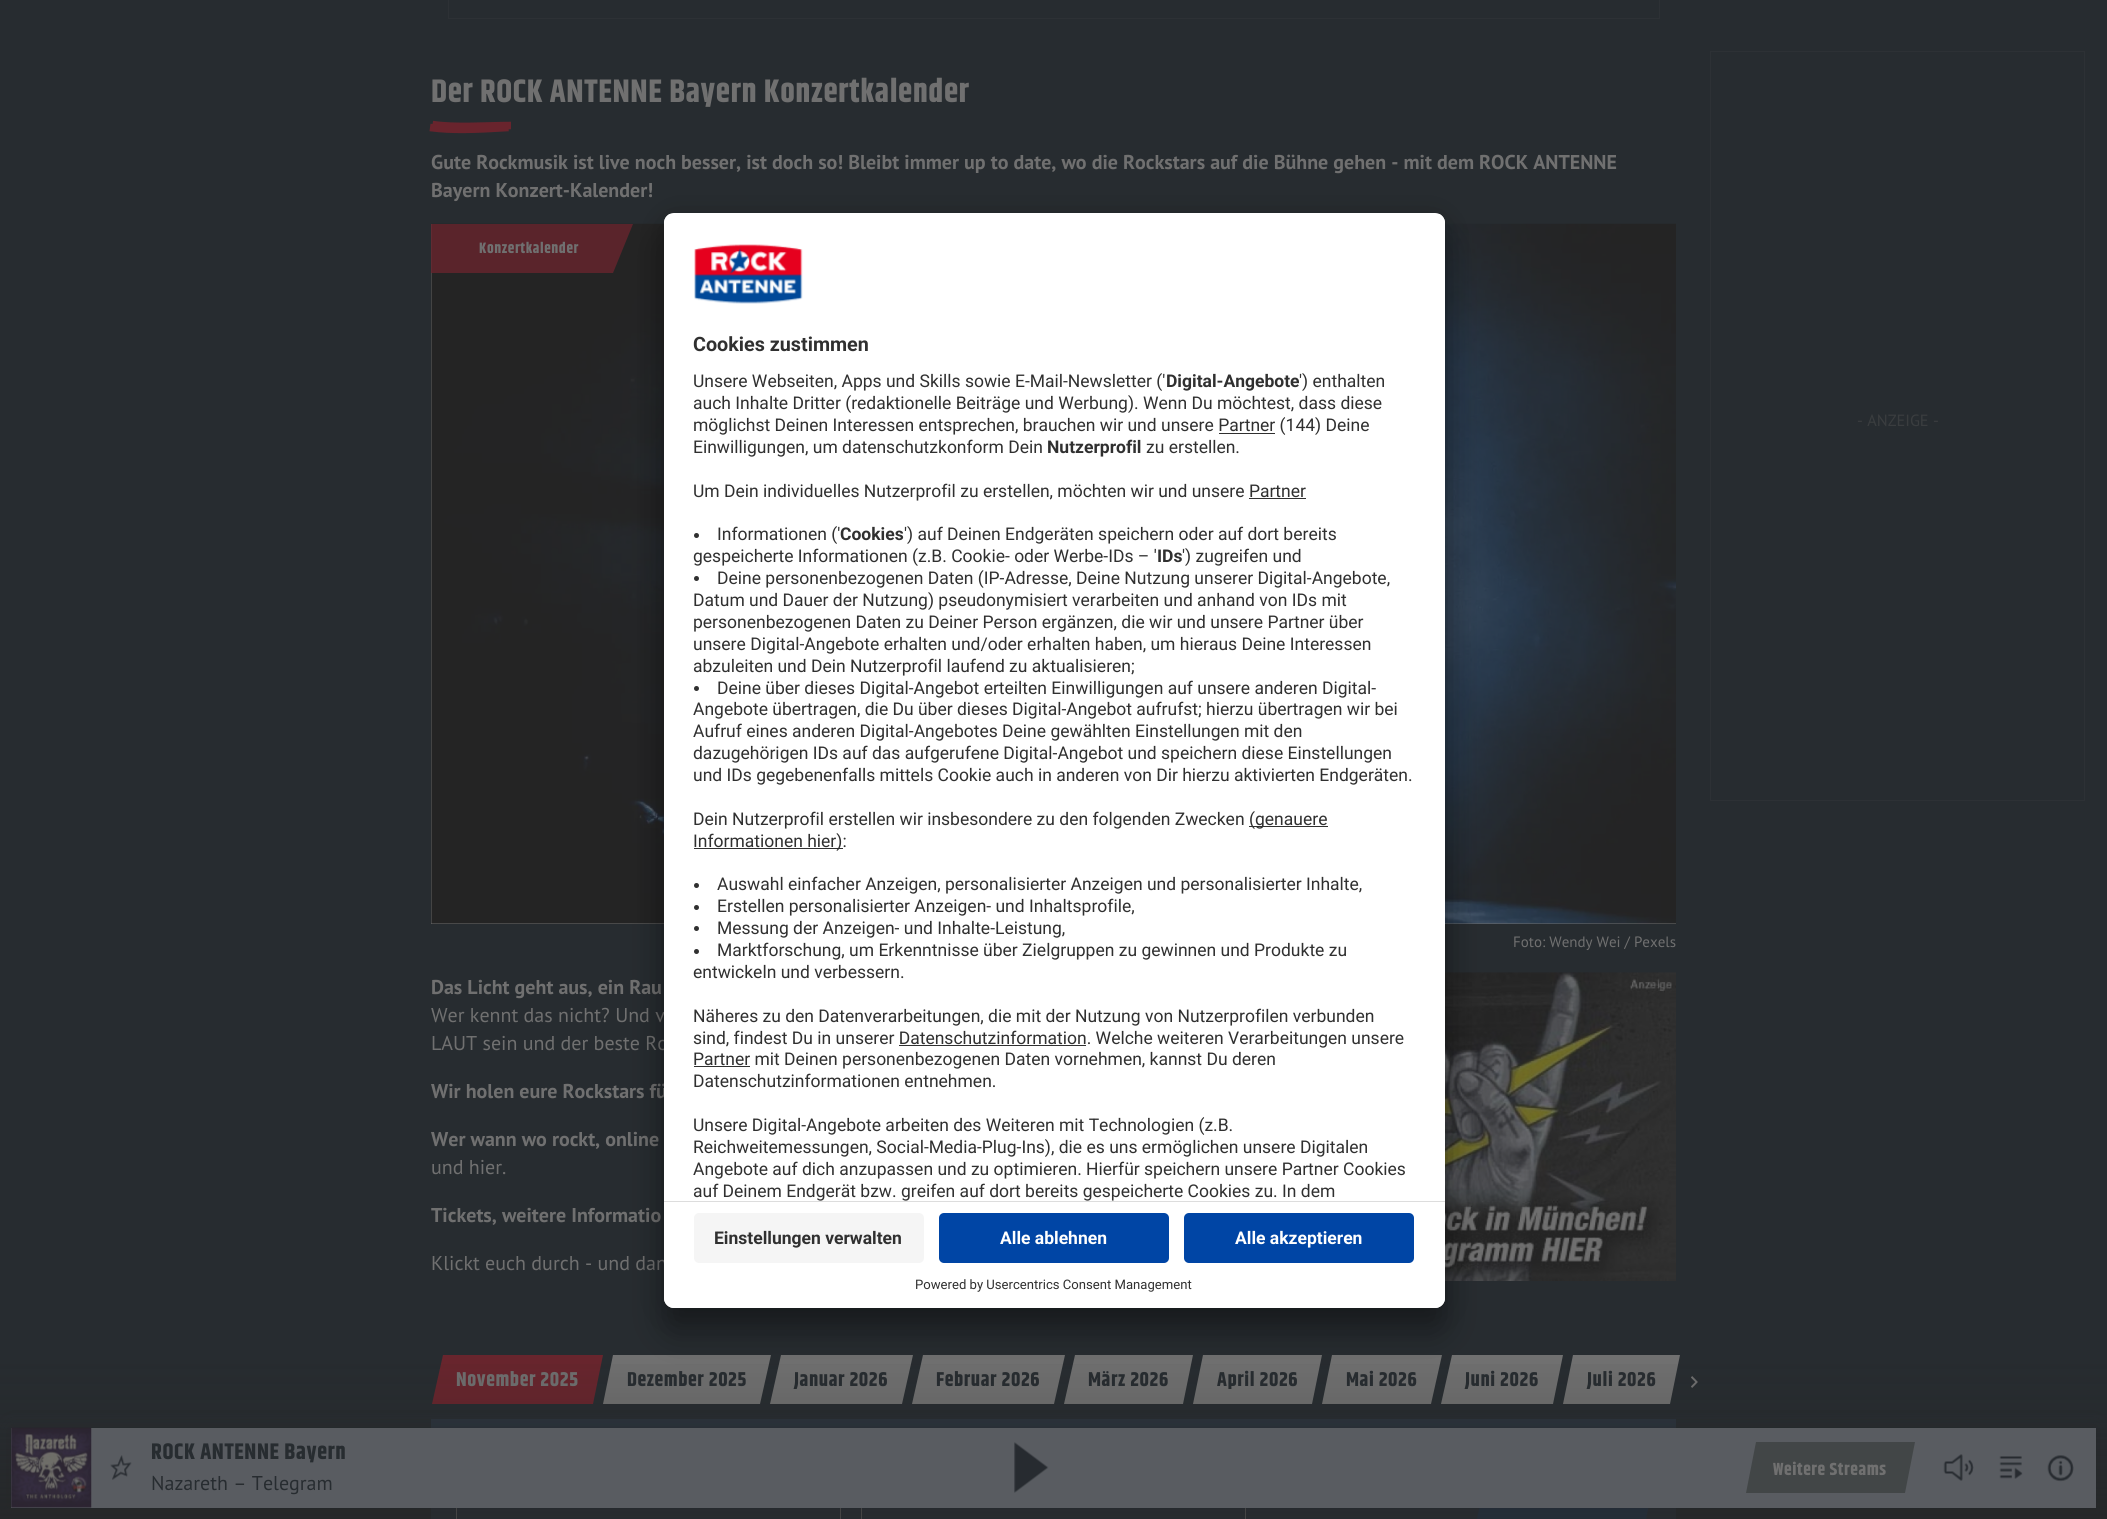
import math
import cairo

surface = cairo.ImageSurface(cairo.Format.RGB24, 2107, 1519)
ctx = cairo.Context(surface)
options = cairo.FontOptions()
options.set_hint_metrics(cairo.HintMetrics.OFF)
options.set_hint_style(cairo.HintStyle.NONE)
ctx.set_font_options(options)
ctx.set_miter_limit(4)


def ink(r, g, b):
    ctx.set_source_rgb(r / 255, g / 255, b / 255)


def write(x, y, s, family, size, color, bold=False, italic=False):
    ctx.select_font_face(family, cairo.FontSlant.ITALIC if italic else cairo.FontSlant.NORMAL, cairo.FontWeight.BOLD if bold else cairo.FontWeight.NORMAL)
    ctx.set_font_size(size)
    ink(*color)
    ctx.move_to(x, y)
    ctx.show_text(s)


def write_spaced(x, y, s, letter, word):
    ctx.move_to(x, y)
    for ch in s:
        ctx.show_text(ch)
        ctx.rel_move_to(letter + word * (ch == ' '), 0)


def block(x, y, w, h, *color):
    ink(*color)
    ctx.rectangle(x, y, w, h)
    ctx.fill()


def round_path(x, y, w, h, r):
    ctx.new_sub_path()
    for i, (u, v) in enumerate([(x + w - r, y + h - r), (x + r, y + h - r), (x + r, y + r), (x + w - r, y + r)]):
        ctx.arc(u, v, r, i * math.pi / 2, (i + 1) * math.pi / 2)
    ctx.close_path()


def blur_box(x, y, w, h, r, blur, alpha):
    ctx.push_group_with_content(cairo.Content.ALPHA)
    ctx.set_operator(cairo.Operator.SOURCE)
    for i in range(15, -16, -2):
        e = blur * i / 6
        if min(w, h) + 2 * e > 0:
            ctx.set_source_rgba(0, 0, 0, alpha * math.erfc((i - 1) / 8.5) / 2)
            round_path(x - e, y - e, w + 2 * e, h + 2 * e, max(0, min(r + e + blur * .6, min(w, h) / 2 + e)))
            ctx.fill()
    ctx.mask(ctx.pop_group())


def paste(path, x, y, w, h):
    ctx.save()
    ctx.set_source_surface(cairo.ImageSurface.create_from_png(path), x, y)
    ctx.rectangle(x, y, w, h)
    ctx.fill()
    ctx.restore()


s1 = dict(family="PT Sans", size=20, color=(112, 112, 112), bold=True)
s2 = dict(family="PT Sans", size=15, color=(112, 112, 112))
s3 = dict(family="PT Sans", size=20, color=(112, 112, 112))
s4 = dict(family="PT Sans", size=16.25, color=(58, 61, 63))
s5 = dict(family="PT Sans", size=20, color=(39, 44, 48))
s6 = dict(family="Roboto", size=19.75, color=(48, 48, 48), bold=True)
s7 = dict(family="Roboto", size=17.5, color=(48, 48, 48))
s8 = dict(family="Roboto", size=17.5, color=(48, 48, 48), bold=True)
s9 = dict(family="Roboto", size=17.5, color=(255, 255, 255), bold=True)
s10 = dict(family="Roboto", size=13.1, color=(48, 48, 48))

ink(39, 44, 48)
ctx.paint()
ctx.rectangle(448.5, -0.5, 1211, 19)
ink(45, 49, 53)
ctx.set_line_width(1)
ctx.stroke()
ctx.select_font_face("Khand", cairo.FontSlant.NORMAL, cairo.FontWeight.BOLD)
ctx.set_font_size(32.5)
ink(112, 112, 112)
write_spaced(431, 102, "Der ROCK ANTENNE Bayern Konzertkalender", 0.6, 0)
ctx.new_path()
ctx.move_to(430, 127.5)
ctx.curve_to(452, 130.5, 475.5, 129.5, 508.5, 127.5)
ink(105, 36, 45)
ctx.set_line_width(7.5)
ctx.stroke()
ctx.new_path()
ctx.move_to(511, 125.5)
ctx.curve_to(487.5, 125.5, 455, 128, 432.5, 124.5)
ctx.stroke()
write(431, 169, "Gute Rockmusik ist live noch besser, ist doch so! Bleibt immer up to date, wo die Rockstars auf die Bühne gehen - mit dem ROCK ANTENNE", **s1)
write(431, 197, "Bayern Konzert-Kalender!", **s1)
block(431, 224, 1245, 700, 111, 111, 111)
paste("pic1.png", 431, 223, 1245, 701)
ctx.set_source_rgba(0.408, 0.145, 0.176, 0.8)
ctx.new_path()
ctx.move_to(633, 224)
ctx.line_to(613, 273)
ctx.line_to(431, 273)
ctx.line_to(431, 224)
ctx.close_path()
ctx.fill()
ctx.select_font_face("Khand", cairo.FontSlant.NORMAL, cairo.FontWeight.BOLD)
ctx.set_font_size(15)
ink(112, 112, 112)
write_spaced(479, 253, "Konzertkalender", 0.6, 0)
write(1513, 947, "Foto: Wendy Wei / Pexels", **s2)
write(431, 994, "Das Licht geht aus, ein Rau", **s1)
write(431, 1022, "Wer kennt das nicht? Und v", **s3)
write(431, 1050, "LAUT sein und der beste Ro", **s3)
write(431, 1098, "Wir holen eure Rockstars fü", **s1)
write(431, 1146, "Wer wann wo rockt, online", **s1)
write(431, 1174, "und hier.", **s3)
write(431, 1222, "Tickets, weitere Informatio", **s1)
write(431, 1270, "Klickt euch durch - und dan", **s3)
paste("pic2.png", 1445, 972, 231, 309)
ink(104, 37, 45)
ctx.new_path()
ctx.move_to(443, 1355)
ctx.line_to(603, 1355)
ctx.line_to(593, 1404)
ctx.line_to(432, 1404)
ctx.close_path()
ctx.fill()
ctx.select_font_face("Khand", cairo.FontSlant.NORMAL, cairo.FontWeight.BOLD)
ink(112, 112, 112)
write_spaced(456, 1386, "November 2025", 0.6, 0)
ctx.new_path()
ctx.move_to(613, 1355)
ctx.line_to(771, 1355)
ctx.line_to(760, 1404)
ctx.line_to(603, 1404)
ctx.close_path()
ctx.fill()
ink(39, 44, 48)
write_spaced(627, 1386, "Dezember 2025", 0.6, 0)
ink(112, 112, 112)
ctx.new_path()
ctx.move_to(781, 1355)
ctx.line_to(913, 1355)
ctx.line_to(902, 1404)
ctx.line_to(770, 1404)
ctx.close_path()
ctx.fill()
ink(39, 44, 48)
write_spaced(794, 1386, "Januar 2026", 0.6, 0)
ink(112, 112, 112)
ctx.new_path()
ctx.move_to(923, 1355)
ctx.line_to(1065, 1355)
ctx.line_to(1054, 1404)
ctx.line_to(912, 1404)
ctx.close_path()
ctx.fill()
ink(39, 44, 48)
write_spaced(936, 1386, "Februar 2026", 0.6, 0)
ink(112, 112, 112)
ctx.new_path()
ctx.move_to(1075, 1355)
ctx.line_to(1193, 1355)
ctx.line_to(1183, 1404)
ctx.line_to(1064, 1404)
ctx.close_path()
ctx.fill()
ink(39, 44, 48)
write_spaced(1088, 1386, "März 2026", 0.6, 0)
ink(112, 112, 112)
ctx.new_path()
ctx.move_to(1203, 1355)
ctx.line_to(1322, 1355)
ctx.line_to(1312, 1404)
ctx.line_to(1193, 1404)
ctx.close_path()
ctx.fill()
ink(39, 44, 48)
write_spaced(1217, 1386, "April 2026", 0.6, 0)
ink(112, 112, 112)
ctx.new_path()
ctx.move_to(1332, 1355)
ctx.line_to(1442, 1355)
ctx.line_to(1431, 1404)
ctx.line_to(1322, 1404)
ctx.close_path()
ctx.fill()
ink(39, 44, 48)
write_spaced(1346, 1386, "Mai 2026", 0.6, 0)
ink(112, 112, 112)
ctx.new_path()
ctx.move_to(1452, 1355)
ctx.line_to(1563, 1355)
ctx.line_to(1553, 1404)
ctx.line_to(1441, 1404)
ctx.close_path()
ctx.fill()
ink(39, 44, 48)
write_spaced(1465, 1386, "Juni 2026", 0.6, 0)
ink(112, 112, 112)
ctx.new_path()
ctx.move_to(1573, 1355)
ctx.line_to(1680, 1355)
ctx.line_to(1670, 1404)
ctx.line_to(1563, 1404)
ctx.close_path()
ctx.fill()
ink(39, 44, 48)
write_spaced(1587, 1386, "Juli 2026", 0.6, 0)
paste("pic3.png", 1691, 1376, 7, 12)
block(431, 1419, 1245, 100, 43, 52, 62)
ctx.rectangle(456.5, 1471.5, 384, 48)
ink(112, 112, 112)
ctx.set_line_width(1)
ctx.stroke()
ctx.rectangle(861.5, 1471.5, 384, 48)
ctx.stroke()
ink(36, 57, 81)
ctx.new_path()
ctx.move_to(1657, 1466)
ctx.line_to(1646, 1519)
ctx.line_to(1477, 1519)
ctx.line_to(1488, 1466)
ctx.close_path()
ctx.fill()
ctx.rectangle(1710.5, 51.5, 374, 749)
ink(45, 49, 53)
ctx.stroke()
write(1857, 426, "- ANZEIGE -", **s4)
gradient = cairo.LinearGradient(1054, 1344, 1054, 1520)
gradient.add_color_stop_rgba(0.01, 0.141, 0.141, 0.141, 0)
gradient.add_color_stop_rgba(0.42, 0.141, 0.141, 0.141, 0.13)
gradient.add_color_stop_rgba(1, 0.141, 0.141, 0.141, 0.56)
ctx.set_source(gradient)
ctx.rectangle(0, 1364, 2107, 155)
ctx.fill()
ink(36, 36, 36)
blur_box(11, 1428, 2085, 80, 0, 10, 0.3)
block(11, 1428, 2085, 80, 89, 92, 97)
paste("pic4.png", 11, 1427, 81, 81)
paste("pic5.png", 110, 1455, 22, 25)
ctx.select_font_face("Khand", cairo.FontSlant.NORMAL, cairo.FontWeight.BOLD)
ctx.set_font_size(22.5)
ink(39, 44, 48)
write_spaced(151, 1459, "ROCK ANTENNE Bayern", 0.6, 0)
write(151, 1490, "Nazareth – Telegram", **s5)
paste("pic6.png", 1014, 1442, 35, 51)
ink(66, 70, 71)
ctx.new_path()
ctx.move_to(1746, 1493)
ctx.line_to(1756, 1442)
ctx.line_to(1915, 1442)
ctx.line_to(1905, 1493)
ctx.close_path()
ctx.fill()
ctx.select_font_face("Khand", cairo.FontSlant.NORMAL, cairo.FontWeight.BOLD)
ctx.set_font_size(17.5)
ink(112, 112, 112)
write_spaced(1773, 1475, "Weitere Streams", 0.6, 0)
paste("pic7.png", 1943, 1454, 31, 27)
paste("pic8.png", 1999, 1456, 24, 23)
paste("pic9.png", 2047, 1455, 27, 27)
ink(0, 0, 0)
blur_box(664, 238, 781, 1095, 10, 17.5, 0.3)
blur_box(664, 219, 781, 1095, 10, 16, 0.22)
ink(255, 255, 255)
round_path(664, 213, 781, 1095, 10)
ctx.fill()
ctx.save()
round_path(664, 213, 781, 1095, 10)
ctx.clip()
ctx.new_path()
ctx.move_to(674, 213)
ctx.line_to(1435, 213)
ctx.curve_to(1440.5, 213, 1445, 217.5, 1445, 223)
ctx.line_to(1445, 1201)
ctx.line_to(664, 1201)
ctx.line_to(664, 223)
ctx.curve_to(664, 217.5, 668.5, 213, 674, 213)
ctx.close_path()
ctx.clip()
block(664, 214, 781, 987, 255, 255, 255)
ctx.restore()
paste("pic10.png", 694, 244, 109, 60)
write(693, 351, "Cookies zustimmen", **s6)
write(693, 387, "Unsere Webseiten, Apps und Skills sowie E-Mail-Newsletter ('", **s7)
write(1166, 387, "Digital-Angebote", **s8)
write(1299, 387, "') enthalten", **s7)
write(693, 409, "auch Inhalte Dritter (redaktionelle Beiträge und Werbung). Wenn Du möchtest, dass diese", **s7)
write(693, 431, "möglichst Deinen Interessen entsprechen, brauchen wir und unsere Partner (144) Deine", **s7)
block(1219, 433, 56, 1, 48, 48, 48)
write(693, 453, "Einwilligungen, um datenschutzkonform Dein", **s7)
write(1047, 453, "Nutzerprofil", **s8)
write(1146, 453, "zu erstellen.", **s7)
write(693, 497, "Um Dein individuelles Nutzerprofil zu erstellen, möchten wir und unsere Partner", **s7)
block(1249, 498, 57, 1, 48, 48, 48)
ctx.new_path()
ctx.arc(696.5, 535.5, 2.5, 0, 2 * math.pi)
ctx.fill()
write(717, 540, "Informationen ('", **s7)
write(840, 540, "Cookies", **s8)
write(904, 540, "') auf Deinen Endgeräten speichern oder auf dort bereits", **s7)
write(693, 562, "gespeicherte Informationen (z.B. Cookie- oder Werbe-IDs – '", **s7)
write(1157, 562, "IDs", **s8)
write(1182, 562, "') zugreifen und", **s7)
ctx.new_path()
ctx.arc(696.5, 578.5, 2.5, 0, 2 * math.pi)
ctx.fill()
write(717, 584, "Deine personenbezogenen Daten (IP-Adresse, Deine Nutzung unserer Digital-Angebote,", **s7)
write(693, 606, "Datum und Dauer der Nutzung) pseudonymisiert verarbeiten und anhand von IDs mit", **s7)
write(693, 628, "personenbezogenen Daten zu Deiner Person ergänzen, die wir und unsere Partner über", **s7)
write(693, 650, "unsere Digital-Angebote erhalten und/oder erhalten haben, um hieraus Deine Interessen", **s7)
write(693, 672, "abzuleiten und Dein Nutzerprofil laufend zu aktualisieren;", **s7)
ctx.new_path()
ctx.arc(696.5, 688.5, 2.5, 0, 2 * math.pi)
ctx.fill()
write(717, 694, "Deine über dieses Digital-Angebot erteilten Einwilligungen auf unsere anderen Digital-", **s7)
write(693, 715, "Angebote übertragen, die Du über dieses Digital-Angebot aufrufst; hierzu übertragen wir bei", **s7)
write(693, 737, "Aufruf eines anderen Digital-Angebotes Deine gewählten Einstellungen mit den", **s7)
write(693, 759, "dazugehörigen IDs auf das aufgerufene Digital-Angebot und speichern diese Einstellungen", **s7)
write(693, 781, "und IDs gegebenenfalls mittels Cookie auch in anderen von Dir hierzu aktivierten Endgeräten.", **s7)
write(693, 825, "Dein Nutzerprofil erstellen wir insbesondere zu den folgenden Zwecken", **s7)
block(1249, 826, 79, 1, 48, 48, 48)
write(1249, 825, "(genauere", **s7)
block(694, 848, 149, 1, 48, 48, 48)
write(693, 847, "Informationen hier):", **s7)
ctx.new_path()
ctx.arc(696.5, 885.5, 2.5, 0, 2 * math.pi)
ctx.fill()
write(717, 890, "Auswahl einfacher Anzeigen, personalisierter Anzeigen und personalisierter Inhalte,", **s7)
ctx.new_path()
ctx.arc(696.5, 907.5, 2.5, 0, 2 * math.pi)
ctx.fill()
write(717, 912, "Erstellen personalisierter Anzeigen- und Inhaltsprofile,", **s7)
ctx.new_path()
ctx.arc(696.5, 928.5, 2.5, 0, 2 * math.pi)
ctx.fill()
write(717, 934, "Messung der Anzeigen- und Inhalte-Leistung,", **s7)
ctx.new_path()
ctx.arc(696.5, 951.5, 2.5, 0, 2 * math.pi)
ctx.fill()
write(717, 956, "Marktforschung, um Erkenntnisse über Zielgruppen zu gewinnen und Produkte zu", **s7)
write(693, 978, "entwickeln und verbessern.", **s7)
write(693, 1022, "Näheres zu den Datenverarbeitungen, die mit der Nutzung von Nutzerprofilen verbunden", **s7)
write(693, 1044, "sind, findest Du in unserer Datenschutzinformation. Welche weiteren Verarbeitungen unsere", **s7)
block(899, 1045, 187, 1, 48, 48, 48)
block(694, 1066, 56, 1, 48, 48, 48)
write(693, 1065, "Partner mit Deinen personenbezogenen Daten vornehmen, kannst Du deren", **s7)
write(693, 1087, "Datenschutzinformationen entnehmen.", **s7)
write(693, 1131, "Unsere Digital-Angebote arbeiten des Weiteren mit Technologien (z.B.", **s7)
write(693, 1153, "Reichweitemessungen, Social-Media-Plug-Ins), die es uns ermöglichen unsere Digitalen", **s7)
write(693, 1175, "Angebote auf dich anzupassen und zu optimieren. Hierfür speichern unsere Partner Cookies", **s7)
write(693, 1197, "auf Deinem Endgerät bzw. greifen auf dort bereits gespeicherte Cookies zu. In dem", **s7)
ink(255, 255, 255)
ctx.new_path()
ctx.move_to(664, 1201)
ctx.line_to(1445, 1201)
ctx.line_to(1445, 1298)
ctx.curve_to(1445, 1303.5, 1440.5, 1308, 1435, 1308)
ctx.line_to(674, 1308)
ctx.curve_to(668.5, 1308, 664, 1303.5, 664, 1298)
ctx.close_path()
ctx.fill()
block(664, 1201, 781, 1, 221, 221, 221)
ink(245, 245, 245)
round_path(694, 1213, 230, 50, 5)
ctx.fill()
write(714, 1244, "Einstellungen verwalten", **s8)
ink(0, 69, 165)
round_path(939, 1213, 230, 50, 5)
ctx.fill()
write(1000, 1244, "Alle ablehnen", **s9)
ink(0, 69, 165)
round_path(1184, 1213, 230, 50, 5)
ctx.fill()
write(1235, 1244, "Alle akzeptieren", **s9)
write(915, 1289, "Powered by Usercentrics Consent Management", **s10)
surface.write_to_png("screenshot.png")
